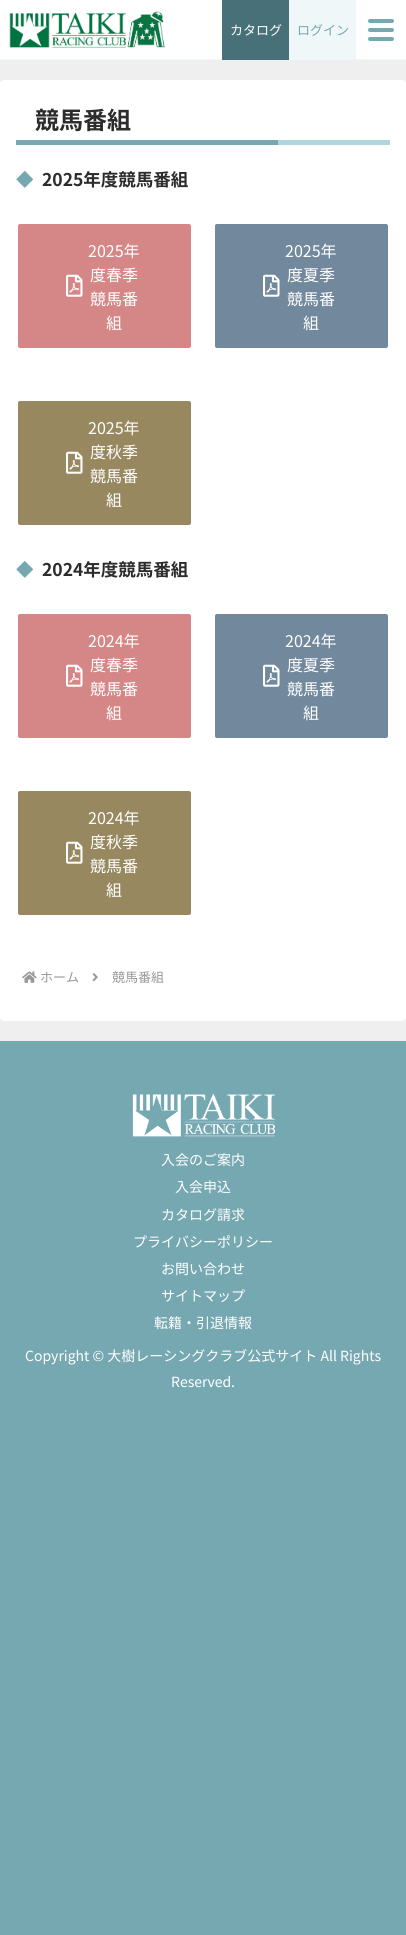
import math
import cairo

surface = cairo.ImageSurface(cairo.Format.RGB24, 406, 1935)
ctx = cairo.Context(surface)
options = cairo.FontOptions()
options.set_hint_metrics(cairo.HintMetrics.OFF)
options.set_hint_style(cairo.HintStyle.NONE)
ctx.set_font_options(options)
ctx.set_miter_limit(4)


def ink(r, g, b):
    ctx.set_source_rgb(r / 255, g / 255, b / 255)


def write(x, y, s, family, size, color, bold=False, italic=False):
    ctx.select_font_face(family, cairo.FontSlant.ITALIC if italic else cairo.FontSlant.NORMAL, cairo.FontWeight.BOLD if bold else cairo.FontWeight.NORMAL)
    ctx.set_font_size(size)
    ink(*color)
    ctx.move_to(x, y)
    ctx.show_text(s)


def block(x, y, w, h, *color):
    ink(*color)
    ctx.rectangle(x, y, w, h)
    ctx.fill()


def round_path(x, y, w, h, r):
    ctx.new_sub_path()
    for i, (u, v) in enumerate([(x + w - r, y + h - r), (x + r, y + h - r), (x + r, y + r), (x + w - r, y + r)]):
        ctx.arc(u, v, r, i * math.pi / 2, (i + 1) * math.pi / 2)
    ctx.close_path()


def paste(path, x, y, w, h):
    ctx.save()
    ctx.set_source_surface(cairo.ImageSurface.create_from_png(path), x, y)
    ctx.rectangle(x, y, w, h)
    ctx.fill()
    ctx.restore()


s1 = dict(family="Noto Sans JP", size=13, color=(255, 255, 255))
s2 = dict(family="Noto Sans JP", size=13, color=(118, 168, 178))
s3 = dict(family="Noto Sans JP", size=24, color=(44, 44, 44), bold=True)
s4 = dict(family="Noto Sans JP", size=17.5, color=(118, 168, 178), bold=True)
s5 = dict(family="Noto Sans JP", size=17.5, color=(44, 44, 44), bold=True)
s6 = dict(family="Noto Sans JP", size=16, color=(255, 255, 255))
s7 = dict(family="Noto Sans JP", size=13, color=(153, 153, 153))
s8 = dict(family="Noto Sans JP", size=14, color=(255, 255, 255))

ink(118, 168, 178)
ctx.paint()
block(0, 0, 406, 59, 255, 255, 255)
block(0, 59, 406, 1, 240, 247, 248)
paste("pic1.png", 9, 11, 156, 37)
block(222, 0, 67, 60, 71, 112, 121)
write(230, 35, "カタログ", **s1)
block(289, 0, 67, 59, 240, 247, 248)
write(297, 35, "ログイン", **s2)
round_path(368, 19, 26, 4, 2)
ctx.fill()
round_path(368, 28, 26, 4, 2)
ctx.fill()
round_path(368, 37, 26, 4, 2)
ctx.fill()
block(0, 60, 406, 981, 239, 239, 239)
ink(255, 255, 255)
round_path(0, 80, 406, 941, 4)
ctx.fill()
block(278, 140, 112, 5, 177, 213, 220)
write(35, 129, "競馬番組", **s3)
block(16, 140, 262, 5, 118, 168, 178)
write(16, 186, "◆", **s4)
write(42, 186, "2025年度競馬番組", **s5)
ink(213, 135, 135)
round_path(18, 224, 173, 124, 2)
ctx.fill()
write(88, 257, "2025年", **s6)
paste("pic2.png", 66, 274, 17, 23)
write(90, 281, "度春季", **s6)
write(90, 305, "競馬番", **s6)
write(106, 329, "組", **s6)
ink(113, 136, 157)
round_path(215, 224, 173, 124, 2)
ctx.fill()
write(285, 257, "2025年", **s6)
paste("pic3.png", 263, 274, 17, 23)
write(287, 281, "度夏季", **s6)
write(287, 305, "競馬番", **s6)
write(303, 329, "組", **s6)
ink(151, 136, 96)
round_path(18, 401, 173, 124, 2)
ctx.fill()
write(88, 434, "2025年", **s6)
paste("pic4.png", 66, 451, 17, 23)
write(90, 458, "度秋季", **s6)
write(90, 482, "競馬番", **s6)
write(106, 506, "組", **s6)
write(16, 576, "◆", **s4)
write(42, 576, "2024年度競馬番組", **s5)
ink(213, 135, 135)
round_path(18, 614, 173, 124, 2)
ctx.fill()
write(88, 647, "2024年", **s6)
paste("pic2.png", 66, 664, 17, 23)
write(90, 671, "度春季", **s6)
write(90, 695, "競馬番", **s6)
write(106, 719, "組", **s6)
ink(113, 136, 157)
round_path(215, 614, 173, 124, 2)
ctx.fill()
write(285, 647, "2024年", **s6)
paste("pic3.png", 263, 664, 17, 23)
write(287, 671, "度夏季", **s6)
write(287, 695, "競馬番", **s6)
write(303, 719, "組", **s6)
ink(151, 136, 96)
round_path(18, 791, 173, 124, 2)
ctx.fill()
write(88, 824, "2024年", **s6)
paste("pic4.png", 66, 841, 17, 23)
write(90, 848, "度秋季", **s6)
write(90, 872, "競馬番", **s6)
write(106, 896, "組", **s6)
paste("pic5.png", 22, 971, 15, 12)
write(40, 982, "ホーム", **s7)
paste("pic6.png", 92, 973, 6, 9)
write(112, 982, "競馬番組", **s7)
paste("pic7.png", 132, 1094, 144, 43)
write(161, 1165, "入会のご案内", **s8)
write(175, 1192, "入会申込", **s8)
write(161, 1220, "カタログ請求", **s8)
write(133, 1247, "プライバシーポリシー", **s8)
write(161, 1274, "お問い合わせ", **s8)
write(161, 1301, "サイトマップ", **s8)
write(154, 1328, "転籍・引退情報", **s8)
write(25, 1361, "Copyright © 大樹レーシングクラブ公式サイト All Rights", **s8)
write(171, 1387, "Reserved.", **s8)
surface.write_to_png("screenshot.png")
